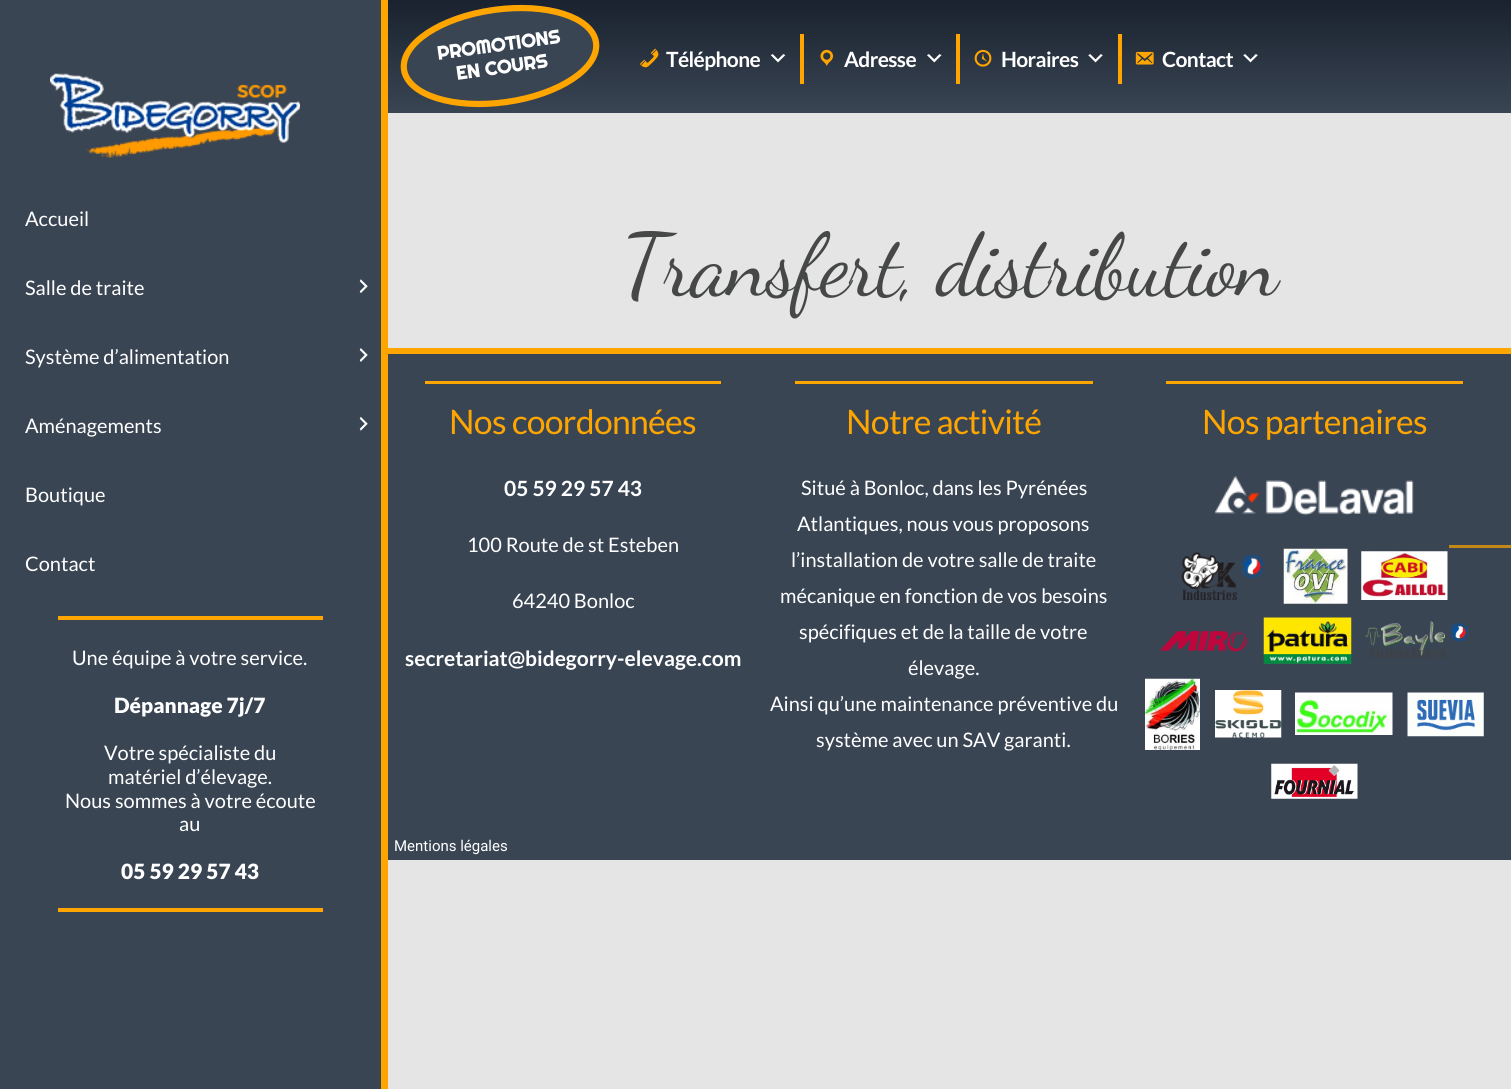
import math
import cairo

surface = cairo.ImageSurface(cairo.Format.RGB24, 1511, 1089)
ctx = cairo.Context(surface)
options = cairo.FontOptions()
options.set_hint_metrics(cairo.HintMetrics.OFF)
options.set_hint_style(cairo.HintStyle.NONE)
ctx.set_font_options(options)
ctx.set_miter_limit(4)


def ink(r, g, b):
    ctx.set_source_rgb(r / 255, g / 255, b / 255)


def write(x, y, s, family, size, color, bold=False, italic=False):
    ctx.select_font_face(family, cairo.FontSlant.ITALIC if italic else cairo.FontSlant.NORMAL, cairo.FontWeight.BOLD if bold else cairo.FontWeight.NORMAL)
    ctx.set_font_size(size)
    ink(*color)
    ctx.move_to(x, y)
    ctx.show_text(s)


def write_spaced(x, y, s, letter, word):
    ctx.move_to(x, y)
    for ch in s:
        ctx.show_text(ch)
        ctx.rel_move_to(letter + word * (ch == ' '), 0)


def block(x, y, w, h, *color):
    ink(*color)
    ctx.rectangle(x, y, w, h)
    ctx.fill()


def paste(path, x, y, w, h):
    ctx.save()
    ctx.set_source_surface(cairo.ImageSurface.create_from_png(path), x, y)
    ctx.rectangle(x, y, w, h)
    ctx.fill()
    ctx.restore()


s1 = dict(family="Righteous", size=18.75, color=(255, 255, 255), bold=True)
s2 = dict(family="Lato", size=20, color=(255, 255, 255))
s3 = dict(family="Lato Black", size=21, color=(255, 255, 255))
s4 = dict(family="Lato", size=21, color=(255, 255, 255), bold=True)
s5 = dict(family="Roboto", size=15, color=(255, 255, 255))

ink(229, 229, 229)
ctx.paint()
gradient = cairo.LinearGradient(949, 0, 949, 113)
gradient.add_color_stop_rgba(0, 0.098, 0.133, 0.18, 1)
gradient.add_color_stop_rgba(1, 0.227, 0.271, 0.329, 1)
ctx.set_source(gradient)
ctx.rectangle(388, 0, 1123, 113)
ctx.fill()
ink(58, 69, 84)
ctx.new_path()
ctx.move_to(493, 7)
ctx.curve_to(548, -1, 595, 15, 599, 42)
ctx.curve_to(603, 69, 562, 97, 507, 105)
ctx.curve_to(452, 113, 405, 97, 401, 70)
ctx.curve_to(397, 43, 438, 14, 493, 7)
ctx.close_path()
ctx.fill()
ctx.new_path()
ctx.move_to(493.5, 10)
ctx.curve_to(546.5, 2.5, 592.5, 17, 596, 42.5)
ctx.curve_to(599.5, 68, 559.5, 94.5, 506.5, 102)
ctx.curve_to(453.5, 109.5, 407.5, 95, 404, 69.5)
ctx.curve_to(400.5, 44, 440.5, 17.5, 493.5, 10)
ctx.close_path()
ink(255, 165, 0)
ctx.set_line_width(6.2)
ctx.stroke()
ctx.save()
ctx.translate(438, 60)
ctx.rotate(-8 * math.pi / 180)
write(0, 0, "PROMOTIONS", **s1)
ctx.restore()
ctx.save()
ctx.translate(457, 80)
ctx.rotate(-8 * math.pi / 180)
write(0, 0, "EN COURS", **s1)
ctx.restore()
block(0, 0, 381, 1089, 58, 69, 84)
block(381, 0, 7, 1089, 255, 165, 0)
paste("pic1.png", 50, 73, 250, 85)
write(25, 226, "Accueil", **s2)
write(25, 295, "Salle de traite", **s2)
paste("pic2.png", 359, 279, 9, 15)
write(25, 364, "Système d’alimentation", **s2)
paste("pic3.png", 359, 348, 9, 14)
write(25, 433, "Aménagements", **s2)
paste("pic4.png", 359, 416, 9, 15)
write(25, 502, "Boutique", **s2)
write(25, 571, "Contact", **s2)
block(58, 616, 265, 4, 255, 165, 0)
block(58, 908, 265, 4, 255, 165, 0)
write(72, 665, "Une équipe à votre service.", **s2)
write(114, 713, "Dépannage 7j/7", **s3)
write(104, 760, "Votre spécialiste du", **s2)
write(108, 784, "matériel d’élevage.", **s2)
write(65, 808, "Nous sommes à votre écoute", **s2)
write(179, 831, "au", **s2)
write(121, 879, "05 59 29 57 43", **s3)
block(800, 34, 4, 50, 255, 165, 0)
paste("pic5.png", 639, 48, 20, 20)
ctx.select_font_face("Lato", cairo.FontSlant.NORMAL, cairo.FontWeight.BOLD)
ink(255, 255, 255)
write_spaced(666, 67, "Téléphone", -0.6, 0)
paste("pic6.png", 770, 54, 16, 9)
block(956, 34, 4, 50, 255, 165, 0)
paste("pic7.png", 820, 49, 14, 17)
ink(255, 255, 255)
write_spaced(844, 67, "Adresse", -0.6, 0)
paste("pic8.png", 927, 54, 15, 9)
block(1118, 34, 4, 50, 255, 165, 0)
paste("pic9.png", 974, 49, 18, 18)
ink(255, 255, 255)
write_spaced(1001, 67, "Horaires", -0.6, 0)
paste("pic10.png", 1088, 54, 15, 9)
paste("pic11.png", 1135, 51, 19, 14)
write_spaced(1162, 67, "Contact", -0.6, 0)
paste("pic10.png", 1243, 54, 15, 9)
ctx.select_font_face("Dancing Script")
ctx.set_font_size(87.5)
ink(70, 72, 71)
write_spaced(622, 294, "Transfert, distribution", -1.75, 0)
block(388, 354, 1123, 506, 58, 69, 84)
block(388, 348, 1123, 6, 255, 165, 0)
block(425, 381, 296, 3, 255, 165, 0)
ctx.select_font_face("Lato")
ctx.set_font_size(33.75)
write_spaced(449, 434, "Nos coordonnées", -0.7, 0)
write(504, 496, "05 59 29 57 43", **s4)
write(467, 552, "100 Route de st Esteben", **s2)
write(512, 608, "64240 Bonloc", **s2)
write(405, 666, "secretariat@bidegorry-elevage.com", **s4)
block(795, 381, 298, 3, 255, 165, 0)
ctx.select_font_face("Lato")
ctx.set_font_size(33.75)
write_spaced(846, 434, "Notre activité", -0.7, 0)
write(801, 495, "Situé à Bonloc, dans les Pyrénées", **s2)
write(797, 531, "Atlantiques, nous vous proposons", **s2)
write(791, 567, "l’installation de votre salle de traite", **s2)
write(780, 603, "mécanique en fonction de vos besoins", **s2)
write(799, 639, "spécifiques et de la taille de votre", **s2)
write(908, 675, "élevage.", **s2)
write(770, 711, "Ainsi qu’une maintenance préventive du", **s2)
write(816, 747, "système avec un SAV garanti.", **s2)
block(1166, 381, 297, 3, 255, 165, 0)
ctx.set_font_size(33.75)
write_spaced(1202, 434, "Nos partenaires", -0.7, 0)
paste("pic12.png", 1215, 476, 199, 39)
paste("pic13.png", 1181, 552, 84, 48)
paste("pic14.png", 1283, 548, 65, 56)
paste("pic15.png", 1361, 551, 87, 49)
paste("pic16.png", 1159, 630, 89, 22)
paste("pic17.png", 1263, 617, 89, 47)
paste("pic18.png", 1365, 621, 104, 37)
paste("pic19.png", 1145, 678, 55, 72)
paste("pic20.png", 1215, 690, 67, 48)
paste("pic21.png", 1295, 692, 98, 43)
paste("pic22.png", 1407, 692, 77, 45)
paste("pic23.png", 1271, 763, 87, 36)
write(394, 851, "Mentions légales", **s5)
block(1449, 545, 62, 3, 196, 136, 25)
surface.write_to_png("screenshot.png")
